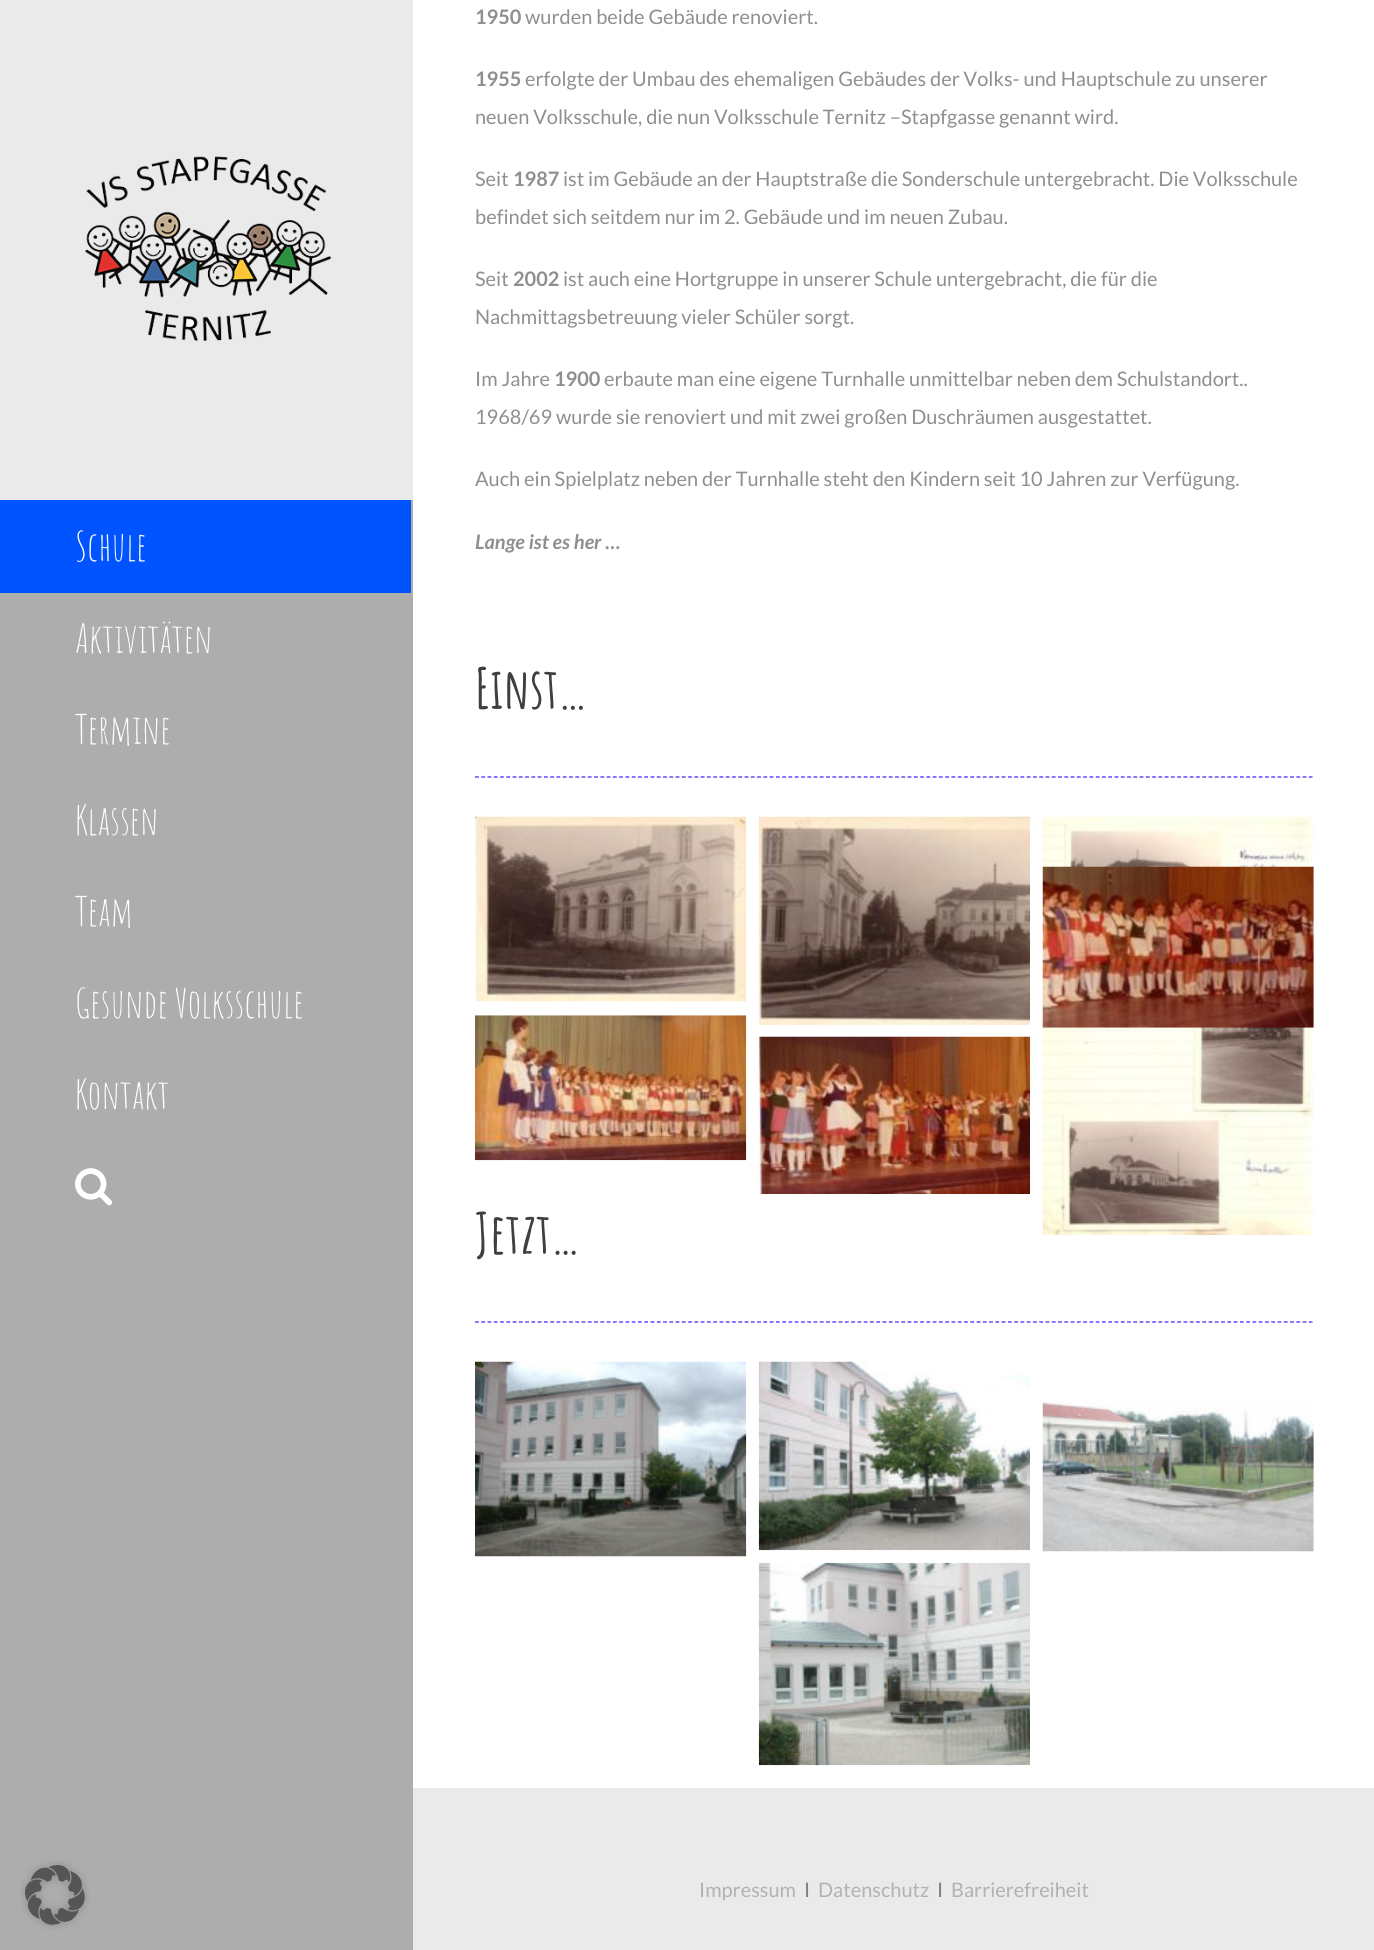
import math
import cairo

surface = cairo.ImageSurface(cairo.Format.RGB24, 1374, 1950)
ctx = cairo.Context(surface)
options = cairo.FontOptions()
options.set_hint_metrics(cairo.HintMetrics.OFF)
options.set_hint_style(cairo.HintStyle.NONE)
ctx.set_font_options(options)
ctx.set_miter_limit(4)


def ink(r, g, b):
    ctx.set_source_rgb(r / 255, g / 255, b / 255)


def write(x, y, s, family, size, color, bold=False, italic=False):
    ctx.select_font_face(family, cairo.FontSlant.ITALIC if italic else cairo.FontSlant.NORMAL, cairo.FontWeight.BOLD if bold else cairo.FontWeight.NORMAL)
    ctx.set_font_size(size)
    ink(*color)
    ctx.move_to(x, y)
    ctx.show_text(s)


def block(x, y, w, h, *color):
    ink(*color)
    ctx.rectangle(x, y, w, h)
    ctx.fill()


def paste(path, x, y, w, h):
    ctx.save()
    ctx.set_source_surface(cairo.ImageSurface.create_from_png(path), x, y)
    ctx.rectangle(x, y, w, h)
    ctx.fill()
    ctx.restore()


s1 = dict(family="Amatic SC", size=40, color=(255, 255, 255))
s2 = dict(family="Lato", size=20, color=(143, 143, 143), bold=True)
s3 = dict(family="Lato", size=20, color=(143, 143, 143))
s4 = dict(family="Lato", size=20, color=(143, 143, 143), bold=True, italic=True)
s5 = dict(family="Amatic SC", size=56, color=(63, 63, 63), bold=True)
s6 = dict(family="Lato", size=20, color=(178, 178, 178))
s7 = dict(family="Lato", size=20, color=(127, 127, 127))

ink(255, 255, 255)
ctx.paint()
block(0, 500, 413, 1450, 173, 173, 173)
paste("pic1.png", 20, 1860, 70, 70)
block(0, 0, 413, 500, 234, 234, 234)
paste("pic2.png", 85, 156, 247, 185)
block(0, 500, 411, 93, 0, 84, 255)
write(75, 561, "Schule", **s1)
write(75, 653, "Aktivitäten", **s1)
write(75, 744, "Termine", **s1)
write(75, 835, "Klassen", **s1)
write(75, 926, "Team", **s1)
write(75, 1018, "Gesunde Volksschule", **s1)
write(75, 1109, "Kontakt", **s1)
paste("pic3.png", 75, 1168, 38, 38)
write(475, 24, "1950", **s2)
write(525, 24, "wurden beide Gebäude renoviert.", **s3)
write(475, 86, "1955", **s2)
write(525, 86, "erfolgte der Umbau des ehemaligen Gebäudes der Volks- und Hauptschule zu unserer", **s3)
write(475, 124, "neuen Volksschule, die nun Volksschule Ternitz –Stapfgasse genannt wird.", **s3)
write(475, 186, "Seit", **s3)
write(513, 186, "1987", **s2)
write(563, 186, "ist im Gebäude an der Hauptstraße die Sonderschule untergebracht. Die Volksschule", **s3)
write(475, 224, "befindet sich seitdem nur im 2. Gebäude und im neuen Zubau.", **s3)
write(475, 286, "Seit", **s3)
write(513, 286, "2002", **s2)
write(563, 286, "ist auch eine Hortgruppe in unserer Schule untergebracht, die für die", **s3)
write(475, 324, "Nachmittagsbetreuung vieler Schüler sorgt.", **s3)
write(475, 386, "Im Jahre", **s3)
write(554, 386, "1900", **s2)
write(604, 386, "erbaute man eine eigene Turnhalle unmittelbar neben dem Schulstandort..", **s3)
write(475, 424, "1968/69 wurde sie renoviert und mit zwei großen Duschräumen ausgestattet.", **s3)
write(475, 486, "Auch ein Spielplatz neben der Turnhalle steht den Kindern seit 10 Jahren zur Verfügung.", **s3)
write(475, 549, "Lange ist es her …", **s4)
ctx.new_path()
ctx.move_to(475, 777)
ctx.line_to(1312.5, 777)
ink(56, 25, 255)
ctx.set_line_width(1.2)
ctx.set_dash([3.75, 2.52])
ctx.stroke()
write(475, 709, "Einst…", **s5)
paste("pic4.png", 475, 816, 272, 186)
paste("pic5.png", 759, 816, 271, 209)
paste("pic6.png", 1042, 816, 272, 420)
paste("pic7.png", 1042, 866, 272, 162)
paste("pic8.png", 475, 1015, 272, 146)
paste("pic9.png", 758, 1036, 272, 158)
ctx.new_path()
ctx.move_to(475, 1322)
ctx.line_to(1312.5, 1322)
ink(56, 25, 255)
ctx.stroke()
write(475, 1254, "Jetzt…", **s5)
paste("pic10.png", 475, 1361, 272, 196)
paste("pic11.png", 758, 1361, 272, 190)
paste("pic12.png", 1042, 1400, 272, 152)
paste("pic13.png", 758, 1562, 272, 204)
block(413, 1788, 961, 162, 234, 234, 234)
write(699, 1897, "Impressum", **s6)
write(804, 1897, "I", **s7)
write(818, 1897, "Datenschutz", **s6)
write(937, 1897, "I", **s7)
write(951, 1897, "Barrierefreiheit", **s6)
surface.write_to_png("screenshot.png")
